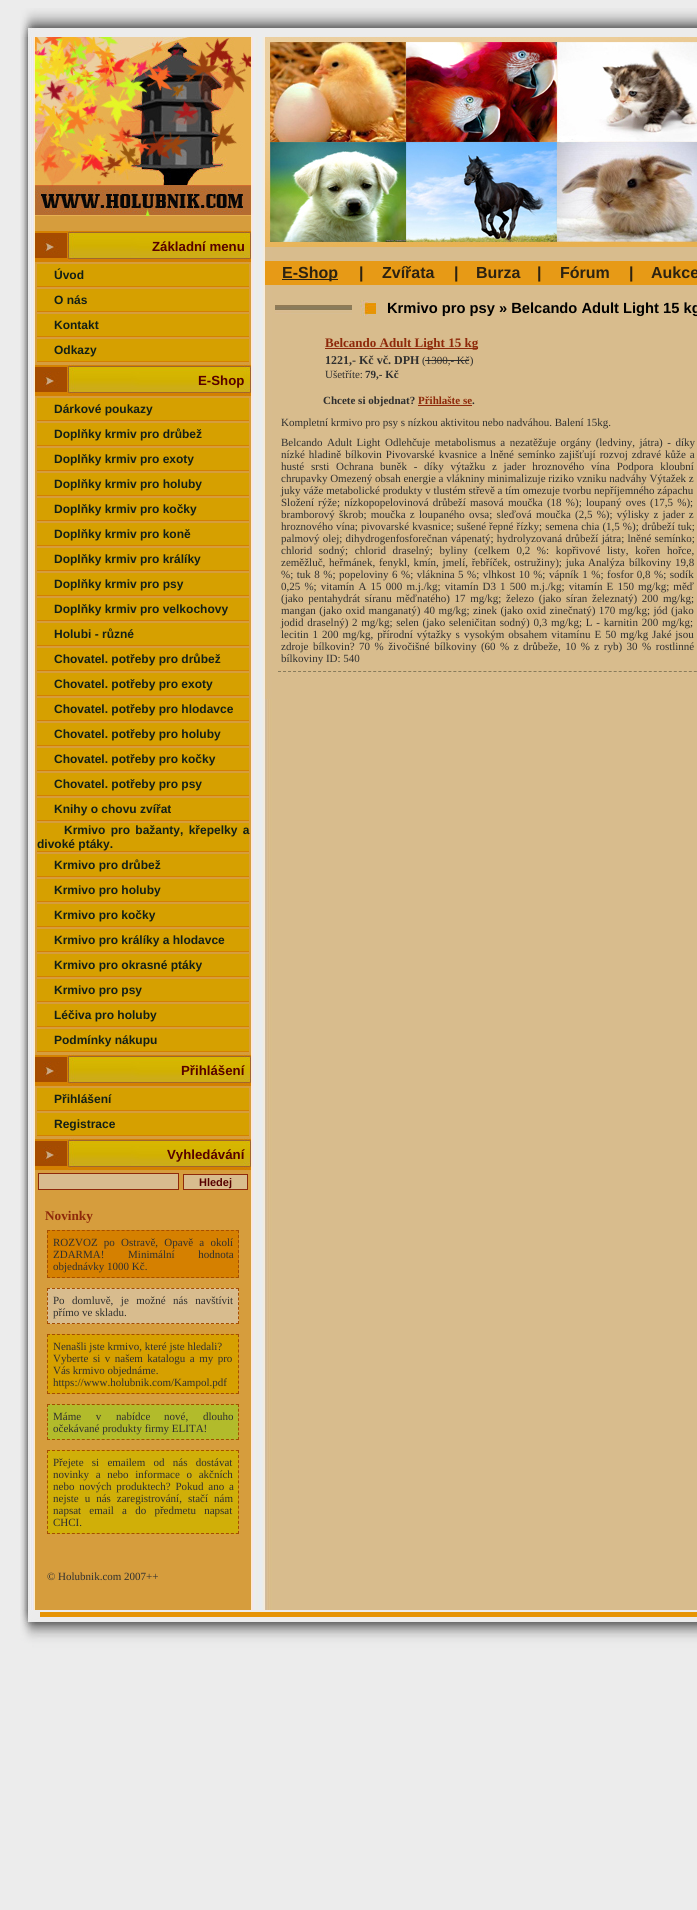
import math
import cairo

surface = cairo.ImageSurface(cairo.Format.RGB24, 697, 1910)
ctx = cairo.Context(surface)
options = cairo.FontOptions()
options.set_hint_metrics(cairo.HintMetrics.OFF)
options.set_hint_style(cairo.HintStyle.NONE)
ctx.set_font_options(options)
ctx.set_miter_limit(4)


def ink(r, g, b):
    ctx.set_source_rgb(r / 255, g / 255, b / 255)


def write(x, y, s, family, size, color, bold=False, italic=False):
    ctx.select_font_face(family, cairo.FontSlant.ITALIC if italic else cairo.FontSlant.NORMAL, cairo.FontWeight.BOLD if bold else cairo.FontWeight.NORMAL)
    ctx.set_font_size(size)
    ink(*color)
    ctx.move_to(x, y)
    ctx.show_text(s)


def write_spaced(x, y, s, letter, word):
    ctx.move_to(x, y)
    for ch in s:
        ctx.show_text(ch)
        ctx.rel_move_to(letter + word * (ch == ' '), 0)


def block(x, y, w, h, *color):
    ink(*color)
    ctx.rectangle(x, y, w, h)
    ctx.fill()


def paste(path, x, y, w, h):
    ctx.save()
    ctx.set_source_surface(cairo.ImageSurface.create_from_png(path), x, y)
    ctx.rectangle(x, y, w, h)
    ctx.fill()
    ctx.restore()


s1 = dict(family="Liberation Sans", size=13.25, color=(87, 0, 0), bold=True)
s2 = dict(family="Liberation Sans", size=12, color=(18, 31, 22), bold=True)
s3 = dict(family="Liberation Sans", size=11, color=(87, 0, 0), bold=True)
s4 = dict(family="Liberation Serif", size=13.25, color=(142, 41, 10), bold=True)
s5 = dict(family="Liberation Serif", size=11, color=(47, 47, 47))
s6 = dict(family="Liberation Sans", size=16, color=(44, 34, 17), bold=True)
s7 = dict(family="Liberation Sans", size=14.7, color=(0, 0, 0), bold=True)
s8 = dict(family="Liberation Serif", size=13, color=(142, 41, 10), bold=True)
s9 = dict(family="Liberation Serif", size=12, color=(47, 47, 47), bold=True)
s10 = dict(family="Liberation Serif", size=11, color=(47, 47, 47), bold=True)
s11 = dict(family="Liberation Serif", size=11, color=(142, 41, 10), bold=True)

ink(236, 236, 236)
ctx.paint()
paste("pic1.png", 20, 8, 677, 29)
paste("pic2.png", 20, 37, 677, 1573)
block(35, 216, 216, 1394, 214, 157, 61)
paste("pic3.png", 35, 37, 216, 179)
paste("pic4.png", 35, 230, 216, 32)
write(152, 251, "Základní menu", **s1)
block(37, 264, 212, 22, 214, 160, 0)
block(37, 286, 212, 1, 212, 129, 0)
write(54, 279, "Úvod", **s2)
block(37, 289, 212, 22, 214, 160, 0)
block(37, 311, 212, 1, 212, 129, 0)
write(54, 304, "O nás", **s2)
block(37, 314, 212, 22, 214, 160, 0)
block(37, 336, 212, 1, 212, 129, 0)
write(54, 329, "Kontakt", **s2)
block(37, 339, 212, 22, 214, 160, 0)
block(37, 361, 212, 1, 212, 129, 0)
write(54, 354, "Odkazy", **s2)
paste("pic4.png", 35, 364, 216, 32)
write(198, 385, "E-Shop", **s1)
block(37, 398, 212, 22, 214, 160, 0)
block(37, 420, 212, 1, 212, 129, 0)
write(54, 413, "Dárkové poukazy", **s2)
block(37, 423, 212, 22, 214, 160, 0)
block(37, 445, 212, 1, 212, 129, 0)
write(54, 438, "Doplňky krmiv pro drůbež", **s2)
block(37, 448, 212, 22, 214, 160, 0)
block(37, 470, 212, 1, 212, 129, 0)
write(54, 463, "Doplňky krmiv pro exoty", **s2)
block(37, 473, 212, 22, 214, 160, 0)
block(37, 495, 212, 1, 212, 129, 0)
write(54, 488, "Doplňky krmiv pro holuby", **s2)
block(37, 498, 212, 22, 214, 160, 0)
block(37, 520, 212, 1, 212, 129, 0)
write(54, 513, "Doplňky krmiv pro kočky", **s2)
block(37, 523, 212, 22, 214, 160, 0)
block(37, 545, 212, 1, 212, 129, 0)
write(54, 538, "Doplňky krmiv pro koně", **s2)
block(37, 548, 212, 22, 214, 160, 0)
block(37, 570, 212, 1, 212, 129, 0)
write(54, 563, "Doplňky krmiv pro králíky", **s2)
block(37, 573, 212, 22, 214, 160, 0)
block(37, 595, 212, 1, 212, 129, 0)
write(54, 588, "Doplňky krmiv pro psy", **s2)
block(37, 598, 212, 22, 214, 160, 0)
block(37, 620, 212, 1, 212, 129, 0)
write(54, 613, "Doplňky krmiv pro velkochovy", **s2)
block(37, 623, 212, 22, 214, 160, 0)
block(37, 645, 212, 1, 212, 129, 0)
write(54, 638, "Holubi - různé", **s2)
block(37, 648, 212, 22, 214, 160, 0)
block(37, 670, 212, 1, 212, 129, 0)
write(54, 663, "Chovatel. potřeby pro drůbež", **s2)
block(37, 673, 212, 22, 214, 160, 0)
block(37, 695, 212, 1, 212, 129, 0)
write(54, 688, "Chovatel. potřeby pro exoty", **s2)
block(37, 698, 212, 22, 214, 160, 0)
block(37, 720, 212, 1, 212, 129, 0)
write(54, 713, "Chovatel. potřeby pro hlodavce", **s2)
block(37, 723, 212, 22, 214, 160, 0)
block(37, 745, 212, 1, 212, 129, 0)
write(54, 738, "Chovatel. potřeby pro holuby", **s2)
block(37, 748, 212, 22, 214, 160, 0)
block(37, 770, 212, 1, 212, 129, 0)
write(54, 763, "Chovatel. potřeby pro kočky", **s2)
block(37, 773, 212, 22, 214, 160, 0)
block(37, 795, 212, 1, 212, 129, 0)
write(54, 788, "Chovatel. potřeby pro psy", **s2)
block(37, 798, 212, 22, 214, 160, 0)
block(37, 820, 212, 1, 212, 129, 0)
write(54, 813, "Knihy o chovu zvířat", **s2)
block(37, 823, 212, 28, 214, 160, 0)
block(37, 851, 212, 1, 212, 129, 0)
ink(18, 31, 22)
write_spaced(64, 834, "Krmivo pro bažanty, křepelky a", 0, 2)
write(37, 848, "divoké ptáky.", **s2)
block(37, 854, 212, 22, 214, 160, 0)
block(37, 876, 212, 1, 212, 129, 0)
write(54, 869, "Krmivo pro drůbež", **s2)
block(37, 879, 212, 22, 214, 160, 0)
block(37, 901, 212, 1, 212, 129, 0)
write(54, 894, "Krmivo pro holuby", **s2)
block(37, 904, 212, 22, 214, 160, 0)
block(37, 926, 212, 1, 212, 129, 0)
write(54, 919, "Krmivo pro kočky", **s2)
block(37, 929, 212, 22, 214, 160, 0)
block(37, 951, 212, 1, 212, 129, 0)
write(54, 944, "Krmivo pro králíky a hlodavce", **s2)
block(37, 954, 212, 22, 214, 160, 0)
block(37, 976, 212, 1, 212, 129, 0)
write(54, 969, "Krmivo pro okrasné ptáky", **s2)
block(37, 979, 212, 22, 214, 160, 0)
block(37, 1001, 212, 1, 212, 129, 0)
write(54, 994, "Krmivo pro psy", **s2)
block(37, 1004, 212, 22, 214, 160, 0)
block(37, 1026, 212, 1, 212, 129, 0)
write(54, 1019, "Léčiva pro holuby", **s2)
block(37, 1029, 212, 22, 214, 160, 0)
block(37, 1051, 212, 1, 212, 129, 0)
write(54, 1044, "Podmínky nákupu", **s2)
paste("pic4.png", 35, 1054, 216, 32)
write(181, 1075, "Přihlášení", **s1)
block(37, 1088, 212, 22, 214, 160, 0)
block(37, 1110, 212, 1, 212, 129, 0)
write(54, 1103, "Přihlášení", **s2)
block(37, 1113, 212, 22, 214, 160, 0)
block(37, 1135, 212, 1, 212, 129, 0)
write(54, 1128, "Registrace", **s2)
paste("pic4.png", 35, 1138, 216, 32)
write(167, 1159, "Vyhledávání", **s1)
ink(216, 188, 142)
ctx.rectangle(38.5, 1173.5, 140, 16)
ctx.fill_preserve()
ink(142, 41, 10)
ctx.set_line_width(1)
ctx.stroke()
ink(216, 188, 142)
ctx.rectangle(183.5, 1174.5, 64, 15)
ctx.fill_preserve()
ink(142, 41, 10)
ctx.stroke()
write(199, 1186, "Hledej", **s3)
write(45, 1220, "Novinky", **s4)
block(47, 1230, 192, 48, 213, 128, 0)
ctx.new_path()
ctx.move_to(47, 1230.5)
ctx.line_to(239, 1230.5)
ink(166, 76, 0)
ctx.set_dash([3, 1.97])
ctx.stroke()
ctx.new_path()
ctx.move_to(238.5, 1230)
ctx.line_to(238.5, 1278)
ctx.set_dash([3, 2])
ctx.stroke()
ctx.new_path()
ctx.move_to(47, 1277.5)
ctx.line_to(239, 1277.5)
ctx.set_dash([3, 1.97])
ctx.stroke()
ctx.new_path()
ctx.move_to(47.5, 1230)
ctx.line_to(47.5, 1278)
ctx.set_dash([3, 2])
ctx.stroke()
ctx.select_font_face("Liberation Serif")
ctx.set_font_size(11)
ink(47, 47, 47)
write_spaced(53, 1246, "ROZVOZ po Ostravě, Opavě a okolí", 0, 3.5)
write_spaced(53, 1258, "ZDARMA! Minimální hodnota", 0, 21)
write(53, 1270, "objednávky 1000 Kč.", **s5)
block(47, 1288, 192, 36, 216, 188, 142)
ctx.new_path()
ctx.move_to(47, 1288.5)
ctx.line_to(239, 1288.5)
ink(166, 76, 0)
ctx.set_dash([3, 1.97])
ctx.stroke()
ctx.new_path()
ctx.move_to(238.5, 1288)
ctx.line_to(238.5, 1324)
ctx.set_dash([3, 1.71])
ctx.stroke()
ctx.new_path()
ctx.move_to(47, 1323.5)
ctx.line_to(239, 1323.5)
ctx.set_dash([3, 1.97])
ctx.stroke()
ctx.new_path()
ctx.move_to(47.5, 1288)
ctx.line_to(47.5, 1324)
ctx.set_dash([3, 1.71])
ctx.stroke()
ink(47, 47, 47)
write_spaced(53, 1304, "Po domluvě, je možné nás navštívit", 0, 4.75)
write(53, 1316, "přímo ve skladu.", **s5)
block(47, 1334, 192, 60, 214, 160, 0)
ctx.new_path()
ctx.move_to(47, 1334.5)
ctx.line_to(239, 1334.5)
ink(166, 76, 0)
ctx.set_dash([3, 1.97])
ctx.stroke()
ctx.new_path()
ctx.move_to(238.5, 1334)
ctx.line_to(238.5, 1394)
ctx.set_dash([3, 2.18])
ctx.stroke()
ctx.new_path()
ctx.move_to(47, 1393.5)
ctx.line_to(239, 1393.5)
ctx.set_dash([3, 1.97])
ctx.stroke()
ctx.new_path()
ctx.move_to(47.5, 1334)
ctx.line_to(47.5, 1394)
ctx.set_dash([3, 2.18])
ctx.stroke()
write(53, 1350, "Nenašli jste krmivo, které jste hledali?", **s5)
write_spaced(53, 1362, "Vyberte si v našem katalogu a my pro", 0, 1.75)
write(53, 1374, "Vás krmivo objednáme.", **s5)
write(53, 1386, "https://www.holubnik.com/Kampol.pdf", **s5)
block(47, 1404, 192, 36, 178, 187, 43)
ctx.new_path()
ctx.move_to(47, 1404.5)
ctx.line_to(239, 1404.5)
ink(166, 76, 0)
ctx.set_dash([3, 1.97])
ctx.stroke()
ctx.new_path()
ctx.move_to(238.5, 1404)
ctx.line_to(238.5, 1440)
ctx.set_dash([3, 1.71])
ctx.stroke()
ctx.new_path()
ctx.move_to(47, 1439.5)
ctx.line_to(239, 1439.5)
ctx.set_dash([3, 1.97])
ctx.stroke()
ctx.new_path()
ctx.move_to(47.5, 1404)
ctx.line_to(47.5, 1440)
ctx.set_dash([3, 1.71])
ctx.stroke()
ink(47, 47, 47)
write_spaced(53, 1420, "Máme v nabídce", 0, 12)
write_spaced(164, 1420, "nové, dlouho", 0, 12)
write(53, 1432, "očekávané produkty firmy ELITA!", **s5)
block(47, 1450, 192, 84, 208, 175, 8)
ctx.new_path()
ctx.move_to(47, 1450.5)
ctx.line_to(239, 1450.5)
ink(166, 76, 0)
ctx.set_dash([3, 1.97])
ctx.stroke()
ctx.new_path()
ctx.move_to(238.5, 1450)
ctx.line_to(238.5, 1534)
ctx.set_dash([3, 2.06])
ctx.stroke()
ctx.new_path()
ctx.move_to(47, 1533.5)
ctx.line_to(239, 1533.5)
ctx.set_dash([3, 1.97])
ctx.stroke()
ctx.new_path()
ctx.move_to(47.5, 1450)
ctx.line_to(47.5, 1534)
ctx.set_dash([3, 2.06])
ctx.stroke()
ink(47, 47, 47)
write_spaced(53, 1466, "Přejete si emailem od nás dostávat", 0, 5.5)
write_spaced(53, 1478, "novinky a nebo informace o akčních", 0, 3.9)
write_spaced(53, 1490, "nebo nových produktech? Pokud ano a", 0, 2)
write_spaced(53, 1502, "nejste u nás zaregistrování, stačí nám", 0, 3.25)
write_spaced(53, 1514, "napsat email a do předmetu napsat", 0, 5.5)
write(53, 1526, "CHCI.", **s5)
write(47, 1580, "© Holubnik.com 2007++", **s5)
block(265, 247, 7, 452, 216, 188, 142)
paste("pic5.png", 265, 37, 432, 210)
block(265, 261, 432, 24, 231, 154, 22)
block(282, 279, 56, 1, 44, 34, 17)
write(282, 278, "E-Shop", **s6)
write(359, 278, "|", **s6)
write(382, 278, "Zvířata", **s6)
write(454, 278, "|", **s6)
write(476, 278, "Burza", **s6)
write(537, 278, "|", **s6)
write(560, 278, "Fórum", **s6)
write(629, 278, "|", **s6)
write(651, 278, "Aukce", **s6)
paste("pic6.png", 275, 305, 77, 9)
paste("pic7.png", 360, 300, 16, 16)
write(387, 313, "Krmivo pro psy » Belcando Adult Light 15 kg", **s7)
ctx.new_path()
ctx.move_to(278, 671.5)
ctx.line_to(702, 671.5)
ink(137, 124, 92)
ctx.set_dash([3, 2.01])
ctx.stroke()
block(325, 348, 153, 1, 142, 41, 10)
write(325, 347, "Belcando Adult Light 15 kg", **s8)
write(325, 364, "1221,- Kč vč. DPH", **s9)
write(422, 364, "(1300,- Kč)", **s5)
block(425, 360, 44, 1, 47, 47, 47)
write(325, 378, "Ušetříte:", **s5)
write(365, 378, "79,- Kč", **s10)
write(323, 404, "Chcete si objednat?", **s10)
write(418, 404, "Přihlašte se", **s11)
write(472, 404, ".", **s10)
block(418, 405, 54, 1, 142, 41, 10)
write(281, 426, "Kompletní krmivo pro psy s nízkou aktivitou nebo nadváhou. Balení 15kg.", **s5)
write_spaced(281, 446, "Belcando Adult Light", 0, 1.75)
write_spaced(385, 446, "Odlehčuje metabolismus a nezatěžuje orgány (ledviny, játra) - díky", 0, 1.75)
write_spaced(281, 458, "nízké hladině bílkovin Pivovarské kvasnice a lněné semínko zajišťují rozvoj zdravé kůže a", 0, 1.25)
write_spaced(281, 470, "husté srsti Ochrana buněk - díky výtažku z jader hroznového vína Podpora kloubní", 0, 4)
write(281, 482, "chrupavky Omezený obsah energie a vlákniny minimalizuje riziko vzniku nadváhy Výtažek z", **s5)
write(281, 494, "juky váže metabolické produkty v tlustém střevě a tím omezuje tvorbu nepříjemného zápachu", **s5)
write(281, 506, "Složení", **s5)
write_spaced(318, 506, "rýže; nízkopopelovinová drůbeží masová moučka (18 %); loupaný oves (17,5 %);", 0, 1.5)
write_spaced(281, 518, "bramborový škrob; moučka z loupaného ovsa; sleďová moučka (2,5 %); výlisky z jader z", 0, 1.5)
write_spaced(281, 530, "hroznového vína; pivovarské kvasnice; sušené řepné řízky; semena chia (1,5 %); drůbeží tuk;", 0, 0.25)
write_spaced(281, 542, "palmový olej; dihydrogenfosforečnan vápenatý; hydrolyzovaná drůbeží játra; lněné semínko;", 0, 0.5)
write_spaced(281, 554, "chlorid sodný; chlorid draselný; byliny (celkem 0,2 %: kopřivové listy, kořen hořce,", 0, 3.9)
write_spaced(281, 566, "zeměžluč, heřmánek, fenykl, kmín, jmelí, řebříček, ostružiny); juka", 0, 1)
write(588, 566, "Analýza", **s5)
write_spaced(629, 566, "bílkoviny 19,8", 0, 1)
write_spaced(281, 578, "%; tuk 8 %; popeloviny 6 %; vláknina 5 %; vlhkost 10 %; vápník 1 %; fosfor 0,8 %; sodík", 0, 0.75)
write_spaced(281, 590, "0,25 %; vitamín A 15 000 m.j./kg; vitamín D3 1 500 m.j./kg; vitamín E 150 mg/kg; měď", 0, 1.4)
write_spaced(281, 602, "(jako pentahydrát síranu měďnatého) 17 mg/kg; železo (jako síran železnatý) 200 mg/kg;", 0, 1.9)
write_spaced(281, 614, "mangan (jako oxid manganatý) 40 mg/kg; zinek (jako oxid zinečnatý) 170 mg/kg; jód (jako", 0, 0.75)
write_spaced(281, 626, "jodid draselný) 2 mg/kg; selen (jako seleničitan sodný) 0,3 mg/kg; L - karnitin 200 mg/kg;", 0, 1)
write_spaced(281, 638, "lecitin 1 200 mg/kg, přírodní výtažky s vysokým obsahem vitamínu E 50 mg/kg", 0, 1.25)
write_spaced(652, 638, "Jaké jsou", 0, 1)
write_spaced(281, 650, "zdroje bílkovin? 70 % živočišné bílkoviny (60 % z drůbeže, 10 % z ryb) 30 % rostlinné", 0, 1.75)
write(281, 662, "bílkoviny ID: 540", **s5)
paste("pic8.png", 20, 1610, 677, 38)
surface.write_to_png("screenshot.png")
